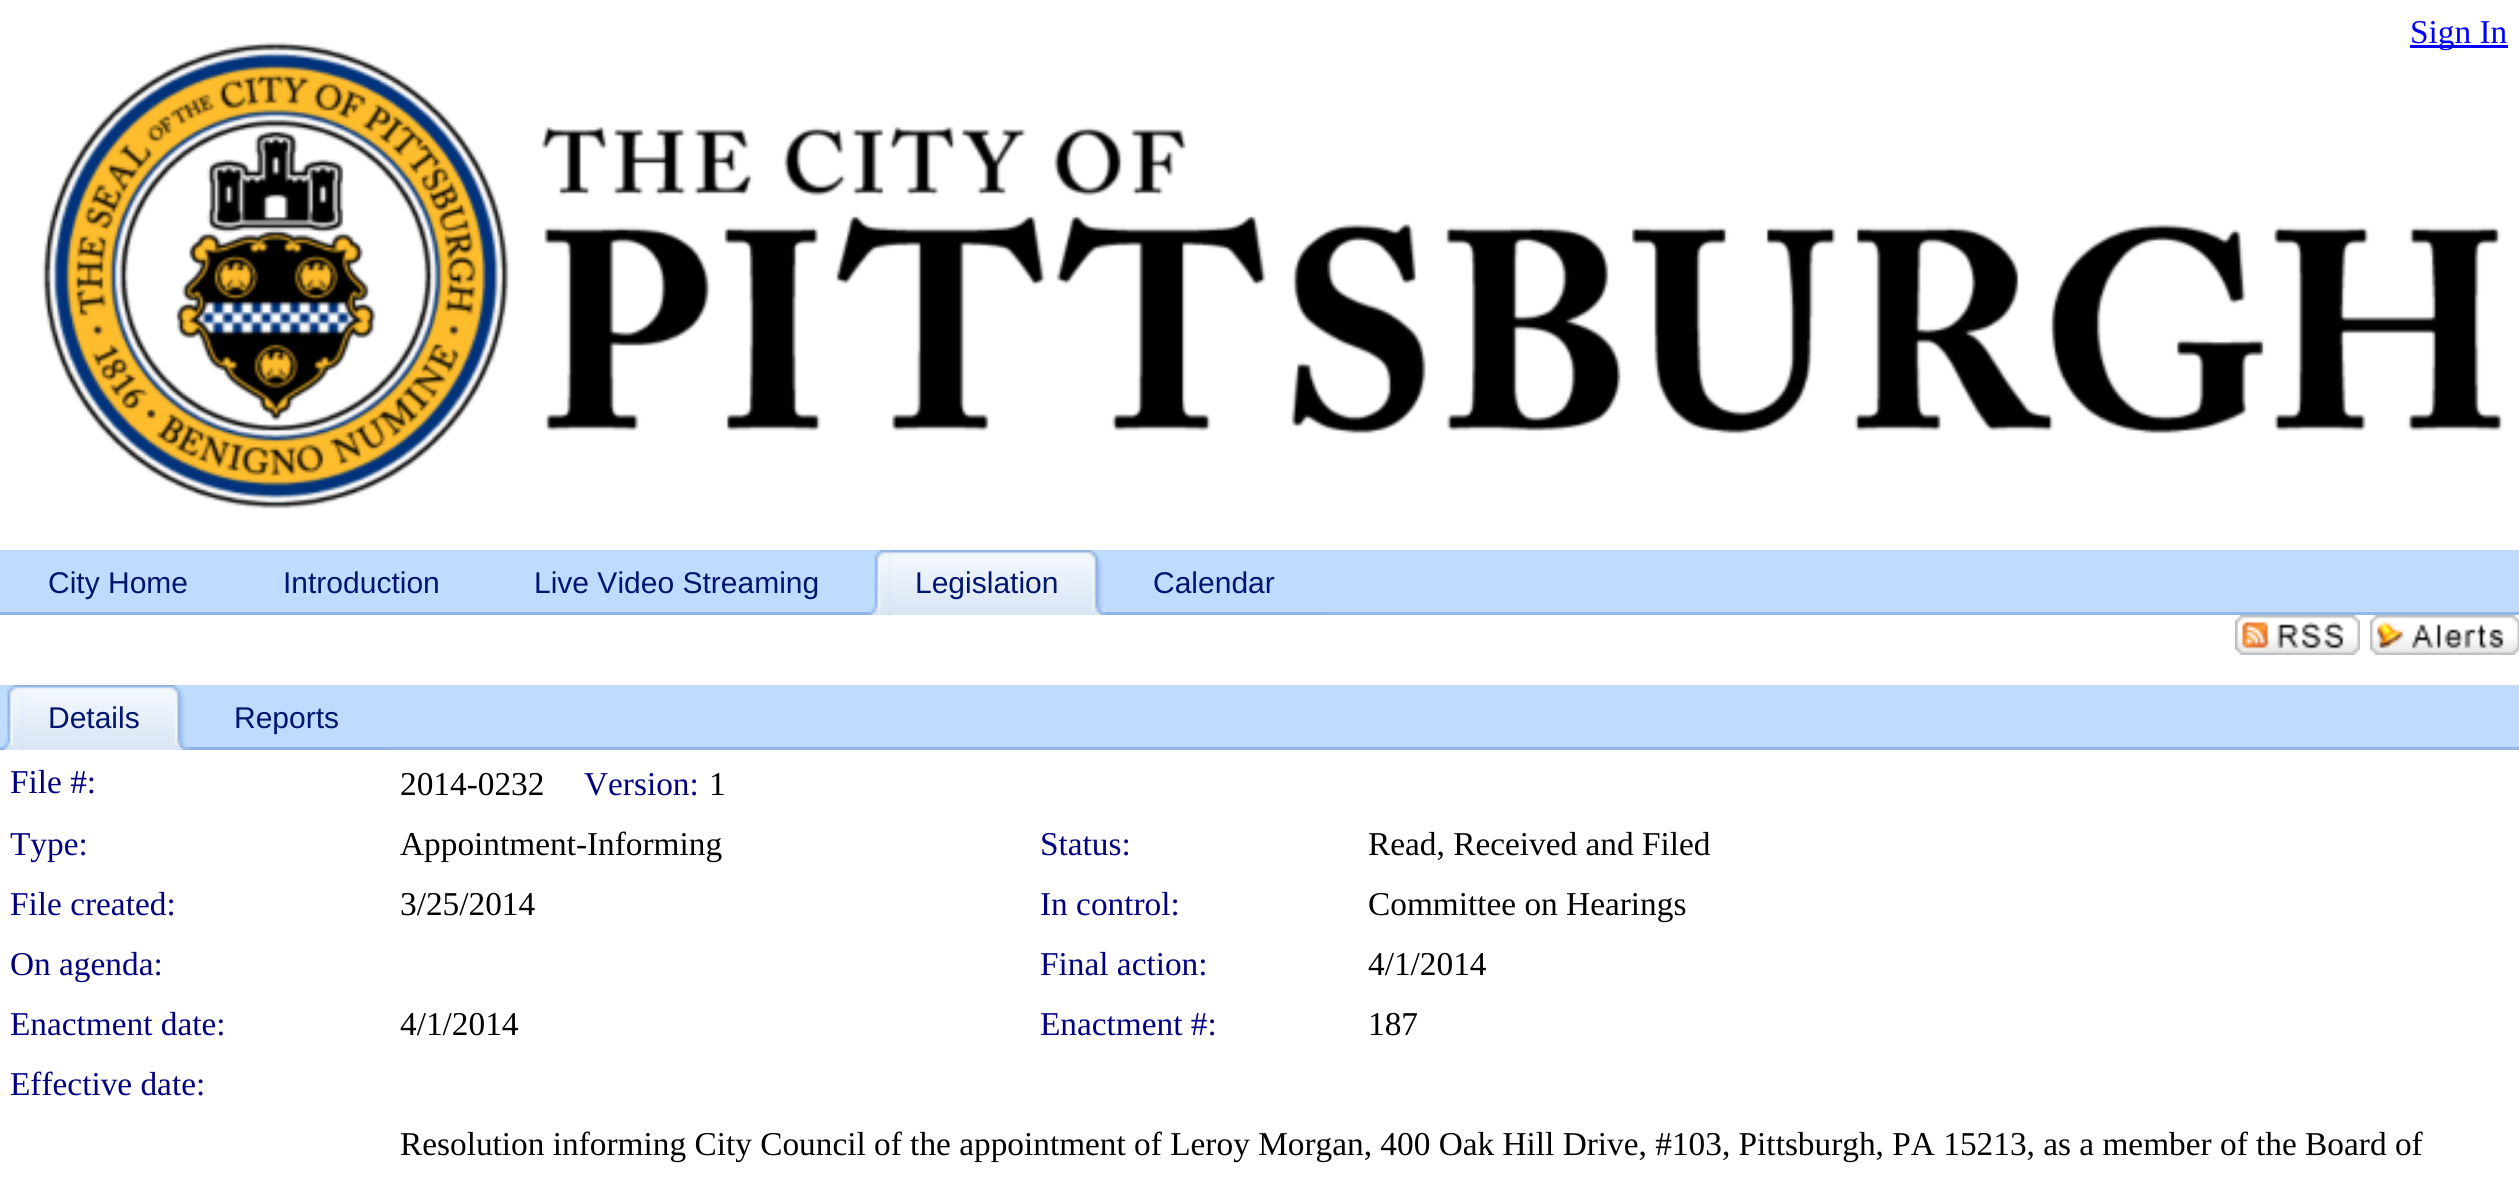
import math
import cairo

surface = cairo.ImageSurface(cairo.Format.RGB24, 2519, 1186)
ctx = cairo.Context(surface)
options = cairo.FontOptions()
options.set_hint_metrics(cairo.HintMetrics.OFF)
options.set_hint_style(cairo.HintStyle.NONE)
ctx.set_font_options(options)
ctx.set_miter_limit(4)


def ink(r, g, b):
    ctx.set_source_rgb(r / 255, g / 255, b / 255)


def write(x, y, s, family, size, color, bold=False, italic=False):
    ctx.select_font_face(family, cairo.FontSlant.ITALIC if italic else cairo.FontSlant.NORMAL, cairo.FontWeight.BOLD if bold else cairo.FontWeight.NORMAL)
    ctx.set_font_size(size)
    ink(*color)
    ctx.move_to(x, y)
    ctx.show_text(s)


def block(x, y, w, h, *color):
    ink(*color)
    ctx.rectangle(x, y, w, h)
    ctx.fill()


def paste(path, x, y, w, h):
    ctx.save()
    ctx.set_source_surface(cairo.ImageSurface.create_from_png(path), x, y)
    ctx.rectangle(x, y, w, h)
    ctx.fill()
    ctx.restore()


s1 = dict(family="Liberation Serif", size=33.33, color=(0, 0, 255))
s2 = dict(family="Liberation Sans", size=30, color=(0, 21, 110))
s3 = dict(family="Liberation Serif", size=33.33, color=(0, 0, 128))
s4 = dict(family="Liberation Serif", size=33.33, color=(0, 0, 0))

ink(255, 255, 255)
ctx.paint()
paste("pic1.png", 42, 42, 2461, 467)
block(2410, 45, 98, 3, 0, 0, 255)
write(2410, 43, "Sign In", **s1)
block(0, 550, 2519, 62, 191, 219, 255)
block(0, 612, 2519, 3, 147, 182, 230)
paste("pic2.png", 0, 613, 235, 2)
write(48, 593, "City Home", **s2)
paste("pic3.png", 235, 613, 252, 2)
write(283, 593, "Introduction", **s2)
paste("pic4.png", 488, 613, 379, 2)
write(534, 593, "Live Video Streaming", **s2)
paste("pic5.png", 869, 550, 21, 65)
paste("pic6.png", 890, 550, 215, 65)
write(915, 593, "Legislation", **s2)
paste("pic7.png", 1105, 613, 217, 2)
write(1153, 593, "Calendar", **s2)
paste("pic8.png", 2235, 615, 125, 40)
paste("pic9.png", 2370, 615, 149, 40)
block(0, 685, 2519, 62, 191, 219, 255)
block(0, 747, 2519, 3, 147, 182, 230)
paste("pic10.png", 2, 685, 21, 65)
paste("pic11.png", 22, 685, 166, 65)
write(48, 728, "Details", **s2)
paste("pic12.png", 188, 748, 199, 2)
write(234, 728, "Reports", **s2)
write(10, 793, "File #:", **s3)
write(400, 795, "2014-0232", **s4)
write(584, 795, "Version:", **s3)
write(709, 795, "1", **s4)
write(10, 855, "Type:", **s3)
write(400, 855, "Appointment-Informing", **s4)
write(1040, 855, "Status:", **s3)
write(1368, 855, "Read, Received and Filed", **s4)
write(10, 915, "File created:", **s3)
write(400, 915, "3/25/2014", **s4)
write(1040, 915, "In control:", **s3)
write(1368, 915, "Committee on Hearings", **s4)
write(10, 975, "On agenda:", **s3)
write(1040, 975, "Final action:", **s3)
write(1368, 975, "4/1/2014", **s4)
write(10, 1035, "Enactment date:", **s3)
write(400, 1035, "4/1/2014", **s4)
write(1040, 1035, "Enactment #:", **s3)
write(1368, 1035, "187", **s4)
write(10, 1095, "Effective date:", **s3)
write(400, 1155, "Resolution informing City Council of the appointment of Leroy Morgan, 400 Oak Hill Drive, #103, Pittsburgh, PA 15213, as a member of the Board of", **s4)
surface.write_to_png("screenshot.png")
